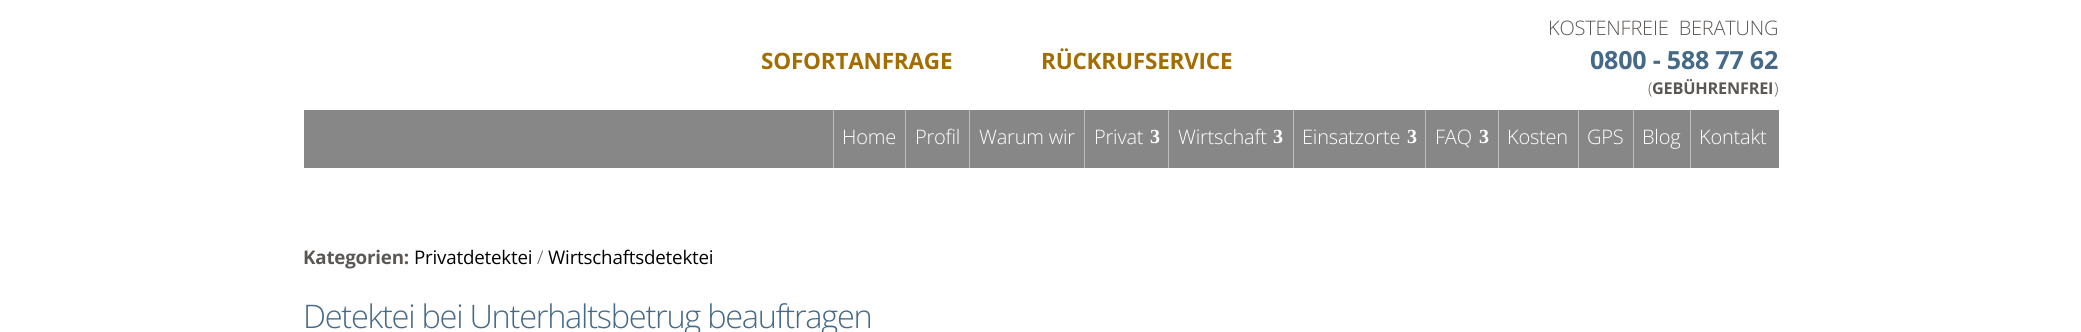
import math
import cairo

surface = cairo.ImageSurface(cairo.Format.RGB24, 2081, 332)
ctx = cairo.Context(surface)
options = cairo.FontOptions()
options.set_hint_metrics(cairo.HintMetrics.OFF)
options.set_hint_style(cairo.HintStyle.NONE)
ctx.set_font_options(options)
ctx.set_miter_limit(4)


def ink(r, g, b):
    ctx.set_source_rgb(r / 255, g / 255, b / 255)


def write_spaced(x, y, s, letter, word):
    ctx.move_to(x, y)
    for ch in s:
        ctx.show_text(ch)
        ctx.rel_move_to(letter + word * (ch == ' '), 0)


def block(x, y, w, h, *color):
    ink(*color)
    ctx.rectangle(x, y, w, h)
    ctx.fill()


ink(255, 255, 255)
ctx.paint()
ctx.select_font_face("Open Sans", cairo.FontSlant.NORMAL, cairo.FontWeight.BOLD)
ctx.set_font_size(22.5)
ink(164, 109, 0)
write_spaced(761, 69, "SOFORTANFRAGE", -0.2, 0)
write_spaced(1041, 69, "RÜCKRUFSERVICE", -0.2, 0)
ctx.select_font_face("Open Sans Light")
ctx.set_font_size(20)
ink(91, 87, 84)
write_spaced(1548, 35, "KOSTENFREIE  BERATUNG", -0.2, 0)
ctx.select_font_face("Open Sans", cairo.FontSlant.NORMAL, cairo.FontWeight.BOLD)
ctx.set_font_size(25)
ink(69, 105, 135)
write_spaced(1590, 69, "0800 - 588 77 62", -0.2, 0)
ctx.select_font_face("Open Sans Light")
ctx.set_font_size(16.25)
ink(91, 87, 84)
write_spaced(1648, 94, "(", -0.2, 0)
ctx.select_font_face("Open Sans", cairo.FontSlant.NORMAL, cairo.FontWeight.BOLD)
write_spaced(1652, 94, "GEBÜHRENFREI", -0.2, 0)
ctx.select_font_face("Open Sans Light")
write_spaced(1774, 94, ")", -0.2, 0)
block(304, 110, 1475, 58, 135, 135, 135)
block(833, 110, 1, 58, 190, 191, 186)
ctx.set_font_size(20)
ink(255, 255, 255)
write_spaced(842, 144, "Home", -0.2, 0)
block(905, 110, 1, 58, 190, 191, 186)
ink(255, 255, 255)
write_spaced(915, 144, "Profil", -0.2, 0)
block(969, 110, 1, 58, 190, 191, 186)
ink(255, 255, 255)
write_spaced(979, 144, "Warum wir", -0.2, 0)
block(1084, 110, 1, 58, 190, 191, 186)
ink(255, 255, 255)
write_spaced(1094, 144, "Privat", -0.2, 0)
ctx.select_font_face("Liberation Serif", cairo.FontSlant.NORMAL, cairo.FontWeight.BOLD)
write_spaced(1150, 143, "3", -0.2, 0)
block(1168, 110, 1, 58, 190, 191, 186)
ctx.select_font_face("Open Sans Light")
ink(255, 255, 255)
write_spaced(1178, 144, "Wirtschaft", -0.2, 0)
ctx.select_font_face("Liberation Serif", cairo.FontSlant.NORMAL, cairo.FontWeight.BOLD)
write_spaced(1273, 143, "3", -0.2, 0)
block(1293, 110, 1, 58, 190, 191, 186)
ctx.select_font_face("Open Sans Light")
ink(255, 255, 255)
write_spaced(1302, 144, "Einsatzorte", -0.2, 0)
ctx.select_font_face("Liberation Serif", cairo.FontSlant.NORMAL, cairo.FontWeight.BOLD)
write_spaced(1407, 143, "3", -0.2, 0)
block(1425, 110, 1, 58, 190, 191, 186)
ctx.select_font_face("Open Sans Light")
ink(255, 255, 255)
write_spaced(1435, 144, "FAQ", -0.2, 0)
ctx.select_font_face("Liberation Serif", cairo.FontSlant.NORMAL, cairo.FontWeight.BOLD)
write_spaced(1479, 143, "3", -0.2, 0)
block(1498, 110, 1, 58, 190, 191, 186)
ctx.select_font_face("Open Sans Light")
ink(255, 255, 255)
write_spaced(1507, 144, "Kosten", -0.2, 0)
block(1578, 110, 1, 58, 190, 191, 186)
ink(255, 255, 255)
write_spaced(1587, 144, "GPS", -0.2, 0)
block(1633, 110, 1, 58, 190, 191, 186)
ink(255, 255, 255)
write_spaced(1642, 144, "Blog", -0.2, 0)
block(1690, 110, 1, 58, 190, 191, 186)
ink(255, 255, 255)
write_spaced(1699, 144, "Kontakt", -0.2, 0)
ctx.select_font_face("Open Sans", cairo.FontSlant.NORMAL, cairo.FontWeight.BOLD)
ctx.set_font_size(18.75)
ink(91, 87, 84)
write_spaced(303, 264, "Kategorien:", -0.2, 0)
ctx.select_font_face("Open Sans")
ink(0, 0, 0)
write_spaced(414, 264, "Privatdetektei", -0.2, 0)
ctx.select_font_face("Open Sans Light")
ink(91, 87, 84)
write_spaced(537, 264, "/", -0.2, 0)
ctx.select_font_face("Open Sans")
ink(0, 0, 0)
write_spaced(548, 264, "Wirtschaftsdetektei", -0.2, 0)
ctx.select_font_face("Open Sans Light")
ctx.set_font_size(32.5)
ink(69, 105, 135)
write_spaced(303, 328, "Detektei bei Unterhaltsbetrug beauftragen", -1.25, 0)
surface.write_to_png("screenshot.png")
